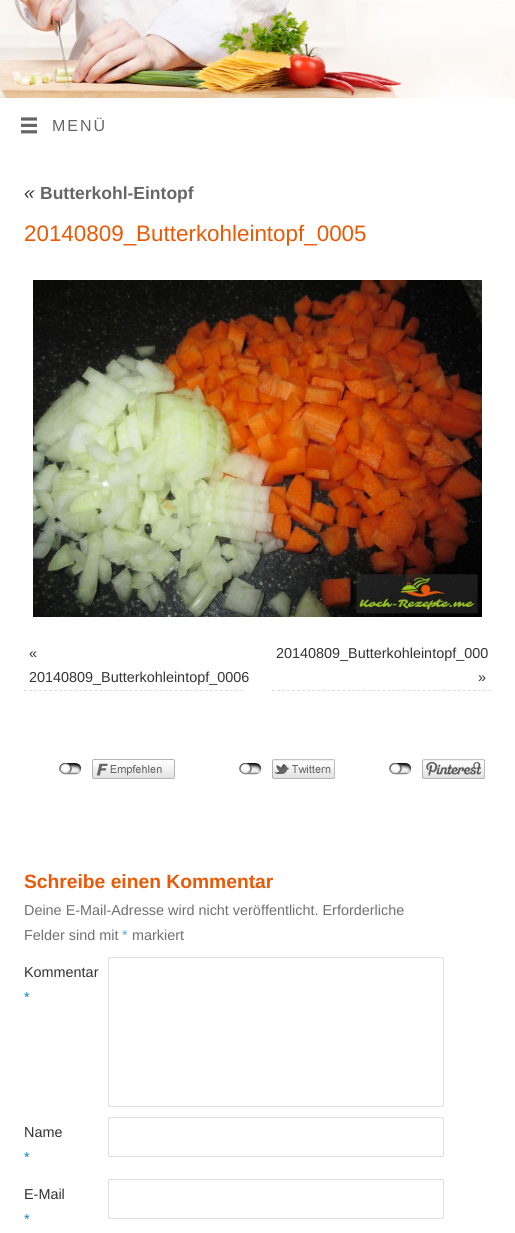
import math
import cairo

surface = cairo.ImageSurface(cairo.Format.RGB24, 515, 1233)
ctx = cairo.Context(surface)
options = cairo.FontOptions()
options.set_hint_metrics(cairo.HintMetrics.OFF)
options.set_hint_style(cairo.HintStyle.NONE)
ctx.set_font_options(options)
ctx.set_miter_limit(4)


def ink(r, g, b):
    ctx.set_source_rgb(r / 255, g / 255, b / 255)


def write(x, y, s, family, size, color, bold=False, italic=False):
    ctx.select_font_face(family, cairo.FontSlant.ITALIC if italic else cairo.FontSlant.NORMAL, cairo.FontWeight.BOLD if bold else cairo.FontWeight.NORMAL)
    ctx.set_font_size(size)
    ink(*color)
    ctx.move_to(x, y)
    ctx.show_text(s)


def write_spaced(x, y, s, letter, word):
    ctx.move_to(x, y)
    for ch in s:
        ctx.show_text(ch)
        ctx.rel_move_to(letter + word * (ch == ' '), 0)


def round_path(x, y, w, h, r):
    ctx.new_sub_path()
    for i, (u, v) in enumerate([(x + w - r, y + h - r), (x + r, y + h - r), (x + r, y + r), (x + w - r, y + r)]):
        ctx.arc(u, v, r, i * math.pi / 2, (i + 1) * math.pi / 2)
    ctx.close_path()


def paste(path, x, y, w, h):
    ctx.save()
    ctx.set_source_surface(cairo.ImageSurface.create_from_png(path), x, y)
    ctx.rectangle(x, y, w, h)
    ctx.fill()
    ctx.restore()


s1 = dict(family="Liberation Sans", size=19, color=(51, 51, 51), italic=True)
s2 = dict(family="Liberation Sans", size=17.5, color=(102, 102, 102), bold=True)
s3 = dict(family="Liberation Sans", size=22.4, color=(234, 89, 5))
s4 = dict(family="Liberation Sans", size=14.4, color=(51, 51, 51))
s5 = dict(family="Liberation Sans", size=19.25, color=(234, 89, 5), bold=True)
s6 = dict(family="Liberation Sans", size=14.4, color=(112, 112, 112))
s7 = dict(family="Liberation Sans", size=14.4, color=(86, 170, 219))
s8 = dict(family="Liberation Sans", size=14.4, color=(13, 133, 204))

ink(255, 255, 255)
ctx.paint()
paste("pic1.png", 0, 0, 515, 98)
paste("pic2.png", 21, 117, 16, 17)
ctx.select_font_face("Liberation Sans")
ctx.set_font_size(16)
ink(102, 102, 102)
write_spaced(52, 131, "MENÜ", 2, 0)
write(24, 199, "«", **s1)
write(40, 199, "Butterkohl-Eintopf", **s2)
write(24, 241, "20140809_Butterkohleintopf_0005", **s3)
paste("pic3.png", 33, 280, 449, 337)
ctx.new_path()
ctx.move_to(24, 690.5)
ctx.line_to(243, 690.5)
ink(221, 221, 221)
ctx.set_line_width(1)
ctx.set_dash([3, 2.02])
ctx.stroke()
write(29, 658, "«", **s4)
write(29, 682, "20140809_Butterkohleintopf_0006", **s4)
ctx.new_path()
ctx.move_to(272, 690.5)
ctx.line_to(491, 690.5)
ink(221, 221, 221)
ctx.stroke()
write(276, 658, "20140809_Butterkohleintopf_000", **s4)
write(478, 682, "»", **s4)
paste("pic4.png", 59, 763, 23, 12)
paste("pic5.png", 92, 759, 83, 20)
paste("pic4.png", 239, 763, 23, 12)
paste("pic6.png", 272, 759, 63, 20)
paste("pic4.png", 389, 763, 23, 12)
paste("pic7.png", 422, 759, 63, 20)
write(24, 888, "Schreibe einen Kommentar", **s5)
write(24, 915, "Deine E-Mail-Adresse wird nicht veröffentlicht. Erforderliche", **s6)
write(24, 940, "Felder sind mit", **s6)
write(122, 940, "*", **s7)
write(132, 940, "markiert", **s6)
write(24, 977, "Kommentar", **s4)
write(24, 1002, "*", **s8)
round_path(108.5, 957.5, 335, 149, 1.5)
ink(221, 221, 221)
ctx.set_dash([])
ctx.stroke()
write(24, 1137, "Name", **s4)
write(24, 1162, "*", **s8)
round_path(108.5, 1117.5, 335, 39, 1.5)
ink(221, 221, 221)
ctx.stroke()
write(24, 1199, "E-Mail", **s4)
write(24, 1224, "*", **s8)
round_path(108.5, 1179.5, 335, 39, 1.5)
ink(221, 221, 221)
ctx.stroke()
surface.write_to_png("screenshot.png")
